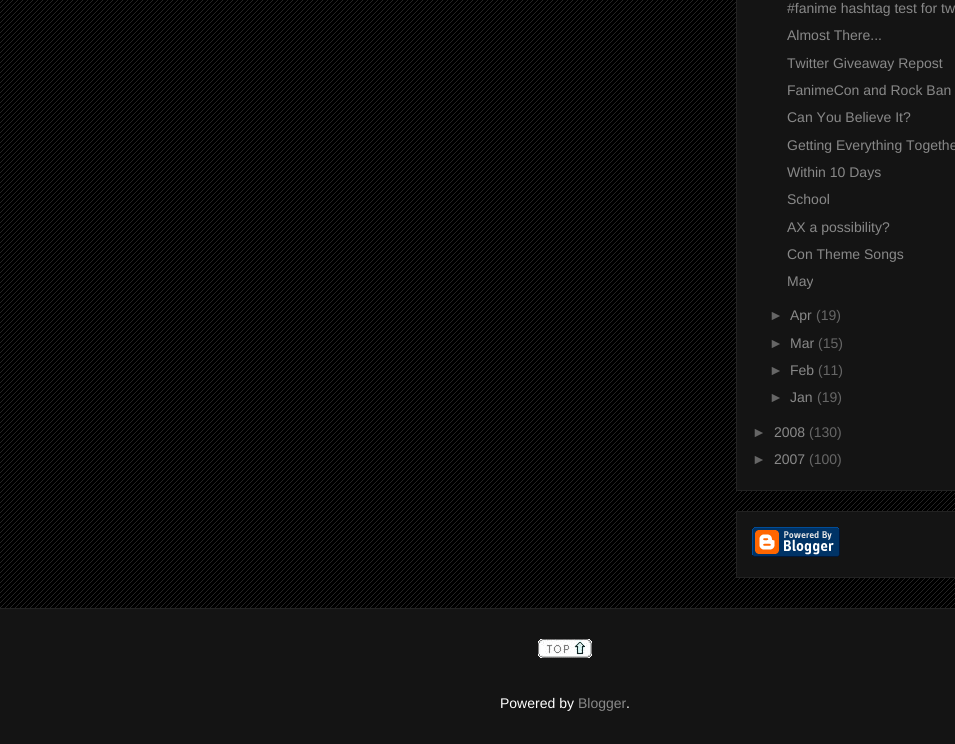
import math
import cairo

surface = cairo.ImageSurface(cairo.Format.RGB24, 955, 744)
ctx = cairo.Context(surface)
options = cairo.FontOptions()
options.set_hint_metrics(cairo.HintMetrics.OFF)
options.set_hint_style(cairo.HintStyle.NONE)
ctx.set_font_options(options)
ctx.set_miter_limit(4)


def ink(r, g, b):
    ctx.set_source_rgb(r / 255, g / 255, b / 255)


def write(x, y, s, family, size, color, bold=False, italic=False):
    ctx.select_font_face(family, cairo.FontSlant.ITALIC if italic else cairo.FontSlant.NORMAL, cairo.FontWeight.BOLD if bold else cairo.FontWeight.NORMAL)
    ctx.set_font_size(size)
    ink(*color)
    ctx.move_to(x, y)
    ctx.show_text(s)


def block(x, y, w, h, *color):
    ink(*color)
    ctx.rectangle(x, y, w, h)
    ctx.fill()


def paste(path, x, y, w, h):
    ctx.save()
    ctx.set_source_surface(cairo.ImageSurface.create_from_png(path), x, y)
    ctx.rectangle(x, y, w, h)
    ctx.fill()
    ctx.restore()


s1 = dict(family="Liberation Sans", size=14, color=(136, 136, 136))
s2 = dict(family="Liberation Sans", size=14, color=(102, 102, 102))
s3 = dict(family="Liberation Sans", size=14, color=(255, 255, 255))

ink(0, 0, 0)
ctx.paint()
paste("pic1.png", 0, 0, 955, 608)
ink(20, 20, 20)
ctx.rectangle(736.5, -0.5, 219, 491)
ctx.fill_preserve()
ink(34, 34, 34)
ctx.set_line_width(1)
ctx.stroke()
write(787, 13, "#fanime hashtag test for tw", **s1)
write(787, 40, "Almost There...", **s1)
write(787, 68, "Twitter Giveaway Repost", **s1)
write(787, 95, "FanimeCon and Rock Ban", **s1)
write(787, 122, "Can You Believe It?", **s1)
write(787, 150, "Getting Everything Togethe", **s1)
write(787, 177, "Within 10 Days", **s1)
write(787, 204, "School", **s1)
write(787, 232, "AX a possibility?", **s1)
write(787, 259, "Con Theme Songs", **s1)
write(787, 286, "May", **s1)
write(769, 320, "►", **s2)
write(790, 320, "Apr", **s1)
write(816, 320, "(19)", **s2)
write(769, 348, "►", **s2)
write(790, 348, "Mar", **s1)
write(818, 348, "(15)", **s2)
write(769, 375, "►", **s2)
write(790, 375, "Feb", **s1)
write(818, 375, "(11)", **s2)
write(769, 402, "►", **s2)
write(790, 402, "Jan", **s1)
write(817, 402, "(19)", **s2)
write(752, 437, "►", **s2)
write(774, 437, "2008", **s1)
write(809, 437, "(130)", **s2)
write(752, 464, "►", **s2)
write(774, 464, "2007", **s1)
write(809, 464, "(100)", **s2)
ink(20, 20, 20)
ctx.rectangle(736.5, 511.5, 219, 66)
ctx.fill_preserve()
ink(34, 34, 34)
ctx.stroke()
paste("pic2.png", 752, 527, 88, 30)
block(0, 609, 955, 135, 20, 20, 20)
block(0, 608, 955, 1, 34, 34, 34)
paste("pic3.png", 538, 639, 54, 19)
write(500, 708, "Powered by", **s3)
write(578, 708, "Blogger", **s1)
write(626, 708, ".", **s3)
surface.write_to_png("screenshot.png")
